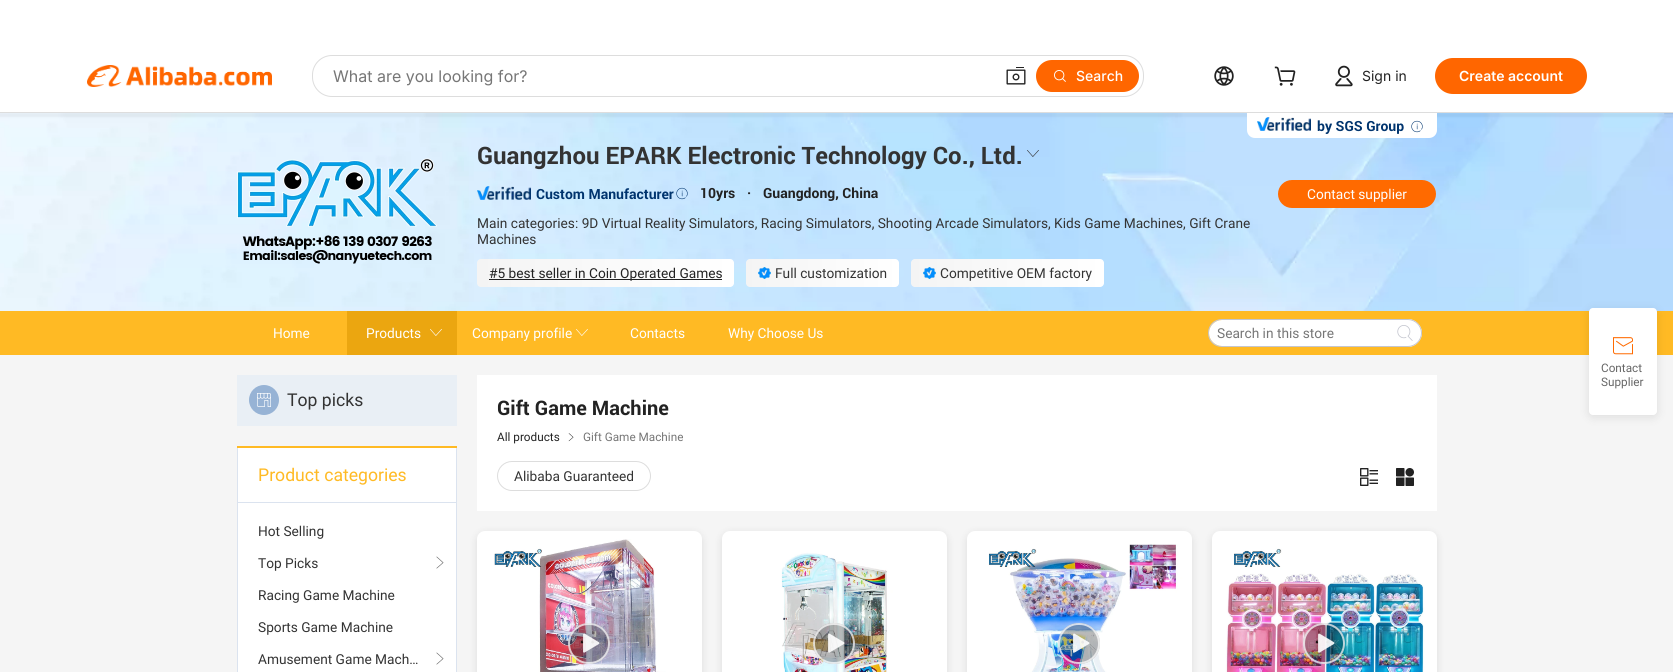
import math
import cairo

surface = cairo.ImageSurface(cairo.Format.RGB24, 1673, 672)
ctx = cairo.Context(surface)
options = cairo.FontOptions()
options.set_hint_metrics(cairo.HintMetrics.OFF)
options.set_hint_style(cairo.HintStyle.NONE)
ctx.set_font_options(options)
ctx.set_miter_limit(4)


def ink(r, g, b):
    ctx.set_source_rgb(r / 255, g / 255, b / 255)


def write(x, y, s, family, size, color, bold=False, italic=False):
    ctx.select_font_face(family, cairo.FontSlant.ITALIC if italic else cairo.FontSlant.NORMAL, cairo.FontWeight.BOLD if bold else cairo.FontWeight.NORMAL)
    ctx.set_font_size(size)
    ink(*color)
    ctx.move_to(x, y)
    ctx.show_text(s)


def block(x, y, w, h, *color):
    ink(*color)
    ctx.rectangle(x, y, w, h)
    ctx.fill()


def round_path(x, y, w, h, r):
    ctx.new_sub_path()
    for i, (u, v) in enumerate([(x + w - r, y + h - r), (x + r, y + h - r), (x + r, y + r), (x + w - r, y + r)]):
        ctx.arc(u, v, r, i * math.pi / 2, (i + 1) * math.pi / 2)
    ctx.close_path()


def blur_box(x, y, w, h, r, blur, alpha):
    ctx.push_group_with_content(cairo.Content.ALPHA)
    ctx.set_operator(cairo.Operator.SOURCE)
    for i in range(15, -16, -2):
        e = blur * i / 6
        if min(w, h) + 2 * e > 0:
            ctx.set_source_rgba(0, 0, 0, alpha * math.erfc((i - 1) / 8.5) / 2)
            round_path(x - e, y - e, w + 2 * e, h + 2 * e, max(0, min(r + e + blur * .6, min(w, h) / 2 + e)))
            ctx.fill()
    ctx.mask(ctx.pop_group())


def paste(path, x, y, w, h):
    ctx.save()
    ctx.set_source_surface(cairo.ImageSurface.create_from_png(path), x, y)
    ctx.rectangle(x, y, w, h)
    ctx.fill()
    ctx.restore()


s1 = dict(family="Inter", size=16, color=(118, 118, 118))
s2 = dict(family="Inter Medium", size=14, color=(255, 255, 255))
s3 = dict(family="Inter", size=14, color=(34, 34, 34))
s4 = dict(family="Inter SemiBold", size=14, color=(255, 255, 255))
s5 = dict(family="Roboto", size=14, color=(0, 52, 110), bold=True)
s6 = dict(family="Roboto", size=24, color=(51, 51, 51), bold=True)
s7 = dict(family="Roboto", size=14, color=(34, 34, 34), bold=True)
s8 = dict(family="Roboto", size=14, color=(51, 51, 51))
s9 = dict(family="Roboto", size=14, color=(34, 34, 34))
s10 = dict(family="Roboto", size=14, color=(255, 255, 255))
s11 = dict(family="Roboto", size=14, color=(118, 118, 118))
s12 = dict(family="Roboto", size=18, color=(51, 51, 51))
s13 = dict(family="Roboto", size=18, color=(255, 186, 36))
s14 = dict(family="Roboto", size=20, color=(34, 34, 34), bold=True)
s15 = dict(family="Roboto", size=12, color=(34, 34, 34))
s16 = dict(family="Roboto", size=12, color=(118, 118, 118))
s17 = dict(family="Roboto", size=12, color=(102, 102, 102))

ink(255, 255, 255)
ctx.paint()
paste("pic7.png", 0, 113, 1673, 198)
ink(0, 0, 0)
blur_box(-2, 113, 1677, 4, 0, 1, 0.05)
block(0, 112, 1673, 1, 221, 221, 221)
paste("pic1.png", 87, 65, 185, 22)
round_path(312, 55, 832, 42, 20)
ctx.fill()
ink(255, 255, 255)
round_path(313, 56, 830, 40, 19)
ctx.fill()
write(333, 82, "What are you looking for?", **s1)
paste("pic2.png", 1006, 67, 20, 18)
ink(255, 102, 0)
round_path(1036, 60, 103, 32, 16)
ctx.fill()
paste("pic3.png", 1054, 70, 12, 12)
write(1076, 81, "Search", **s2)
paste("pic4.png", 1214, 66, 20, 20)
paste("pic5.png", 1274, 66, 22, 20)
paste("pic6.png", 1335, 65, 18, 22)
write(1362, 81, "Sign in", **s3)
ink(255, 102, 0)
round_path(1435, 58, 152, 36, 18)
ctx.fill()
write(1459, 81, "Create account", **s4)
ctx.new_path()
ctx.move_to(1247, 113)
ctx.line_to(1437, 113)
ctx.line_to(1437, 130)
ctx.curve_to(1437, 134.5, 1433.5, 138, 1429, 138)
ctx.line_to(1255, 138)
ctx.curve_to(1250.5, 138, 1247, 134.5, 1247, 130)
ctx.close_path()
ctx.fill()
paste("pic8.png", 1257, 117, 54, 14)
write(1317, 131, "by SGS Group", **s5)
paste("pic9.png", 1411, 120, 12, 13)
paste("pic10.png", 237, 158, 200, 106)
write(477, 164, "Guangzhou EPARK Electronic Technology Co., Ltd.", **s6)
paste("pic11.png", 1027, 150, 12, 7)
paste("pic12.png", 477, 186, 54, 14)
write(536, 199, "Custom Manufacturer", **s5)
paste("pic13.png", 676, 187, 12, 13)
write(700, 198, "10yrs", **s7)
write(747, 198, "·", **s7)
write(763, 198, "Guangdong, China", **s7)
write(477, 228, "Main categories: 9D Virtual Reality Simulators, Racing Simulators, Shooting Arcade Simulators, Kids Game Machines, Gift Crane", **s8)
write(477, 244, "Machines", **s8)
gradient = cairo.LinearGradient(734, 273, 477, 273)
gradient.add_color_stop_rgba(0, 1, 1, 1, 1)
gradient.add_color_stop_rgba(1, 0.957, 0.957, 0.957, 1)
ctx.set_source(gradient)
round_path(477, 259, 257, 28, 4)
ctx.fill()
block(489, 279, 233, 1, 34, 34, 34)
write(489, 278, "#5 best seller in Coin Operated Games", **s9)
gradient = cairo.LinearGradient(899, 273, 746, 273)
gradient.add_color_stop_rgba(0, 1, 1, 1, 1)
gradient.add_color_stop_rgba(1, 0.957, 0.957, 0.957, 1)
ctx.set_source(gradient)
round_path(746, 259, 153, 28, 4)
ctx.fill()
paste("pic14.png", 758, 267, 13, 12)
write(775, 278, "Full customization", **s8)
gradient = cairo.LinearGradient(1104, 273, 911, 273)
gradient.add_color_stop_rgba(0, 1, 1, 1, 1)
gradient.add_color_stop_rgba(1, 0.957, 0.957, 0.957, 1)
ctx.set_source(gradient)
round_path(911, 259, 193, 28, 4)
ctx.fill()
paste("pic15.png", 923, 267, 13, 12)
write(940, 278, "Competitive OEM factory", **s8)
ink(255, 106, 0)
round_path(1278, 180, 158, 28, 14)
ctx.fill()
write(1307, 199, "Contact supplier", **s10)
block(0, 311, 1673, 44, 255, 186, 36)
write(273, 338, "Home", **s10)
block(347, 311, 110, 44, 235, 166, 16)
write(366, 338, "Products", **s10)
paste("pic16.png", 430, 329, 12, 7)
write(472, 338, "Company profile", **s10)
paste("pic17.png", 576, 329, 12, 7)
write(630, 338, "Contacts", **s10)
write(728, 338, "Why Choose Us", **s10)
ink(196, 198, 207)
ctx.set_fill_rule(cairo.FillRule.EVEN_ODD)
ctx.new_path()
ctx.move_to(1222, 319)
ctx.line_to(1389, 319)
ctx.line_to(1389, 347)
ctx.line_to(1222, 347)
ctx.curve_to(1214, 347, 1208, 341, 1208, 333)
ctx.curve_to(1208, 325, 1214, 319, 1222, 319)
ctx.close_path()
ctx.move_to(1222, 320)
ctx.line_to(1389, 320)
ctx.line_to(1389, 346)
ctx.line_to(1222, 346)
ctx.curve_to(1215, 346, 1209, 340, 1209, 333)
ctx.curve_to(1209, 326, 1215, 320, 1222, 320)
ctx.close_path()
ctx.fill()
ink(255, 255, 255)
ctx.new_path()
ctx.move_to(1222, 320)
ctx.line_to(1388.5, 320)
ctx.curve_to(1389, 320, 1389, 320, 1389, 320.5)
ctx.line_to(1389, 345.5)
ctx.curve_to(1389, 346, 1389, 346, 1388.5, 346)
ctx.line_to(1222, 346)
ctx.curve_to(1215, 346, 1209, 340, 1209, 333)
ctx.curve_to(1209, 326, 1215, 320, 1222, 320)
ctx.close_path()
ctx.fill()
write(1217, 338, "Search in this store", **s11)
ink(255, 255, 255)
ctx.new_path()
ctx.move_to(1389, 319)
ctx.line_to(1408, 319)
ctx.curve_to(1415.5, 319, 1422, 325.5, 1422, 333)
ctx.curve_to(1422, 340.5, 1415.5, 347, 1408, 347)
ctx.line_to(1389, 347)
ctx.close_path()
ctx.fill()
ink(196, 198, 207)
ctx.new_path()
ctx.move_to(1389, 319)
ctx.line_to(1408, 319)
ctx.curve_to(1415.5, 319, 1422, 325.5, 1422, 333)
ctx.curve_to(1422, 340.5, 1415.5, 347, 1408, 347)
ctx.line_to(1389, 347)
ctx.close_path()
ctx.move_to(1389, 320)
ctx.line_to(1408, 320)
ctx.curve_to(1415, 320, 1421, 326, 1421, 333)
ctx.curve_to(1421, 340, 1415, 346, 1408, 346)
ctx.line_to(1389, 346)
ctx.close_path()
ctx.fill()
paste("pic18.png", 1397, 325, 16, 16)
block(0, 355, 1673, 317, 245, 245, 245)
block(237, 375, 220, 51, 233, 239, 245)
ink(151, 179, 213)
ctx.arc(264, 400, 15, 0, 2 * math.pi)
ctx.fill()
paste("pic19.png", 257, 393, 14, 14)
write(287, 406, "Top picks", **s12)
block(238, 448, 218, 224, 255, 255, 255)
block(237, 446, 220, 2, 255, 186, 36)
block(456, 448, 1, 224, 219, 227, 239)
block(237, 448, 1, 224, 219, 227, 239)
block(238, 502, 218, 1, 219, 227, 239)
write(258, 481, "Product categories", **s13)
write(258, 536, "Hot Selling", **s8)
write(258, 568, "Top Picks", **s8)
paste("pic20.png", 436, 556, 8, 13)
write(258, 600, "Racing Game Machine", **s8)
write(258, 632, "Sports Game Machine", **s8)
write(258, 664, "Amusement Game Mach…", **s8)
paste("pic20.png", 436, 652, 8, 13)
block(477, 375, 960, 136, 255, 255, 255)
write(497, 415, "Gift Game Machine", **s14)
write(497, 441, "All products", **s15)
paste("pic21.png", 568, 433, 6, 9)
write(583, 441, "Gift Game Machine", **s16)
round_path(497.5, 461.5, 153, 29, 14.5)
ink(221, 221, 221)
ctx.set_line_width(1)
ctx.stroke()
write(514, 481, "Alibaba Guaranteed", **s8)
paste("pic22.png", 1360, 468, 18, 18)
paste("pic23.png", 1396, 468, 18, 18)
ink(0, 0, 0)
blur_box(477, 533, 225, 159, 8, 4, 0.1)
ink(255, 255, 255)
round_path(477, 531, 225, 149, 8)
ctx.fill()
paste("pic24.png", 485, 539, 209, 133)
ctx.set_source_rgba(0, 0, 0, 0.27)
round_path(568, 623, 42, 41, 20.5)
ctx.fill()
round_path(569, 624, 40, 39, 19.5)
ctx.set_source_rgba(1, 1, 1, 0.72)
ctx.set_line_width(2)
ctx.stroke()
paste("pic25.png", 583, 633, 17, 20)
ink(0, 0, 0)
blur_box(722, 533, 225, 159, 8, 4, 0.1)
ink(255, 255, 255)
round_path(722, 531, 225, 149, 8)
ctx.fill()
paste("pic26.png", 730, 539, 209, 133)
ctx.set_source_rgba(0, 0, 0, 0.27)
round_path(813, 623, 42, 41, 20.5)
ctx.fill()
round_path(814, 624, 40, 39, 19.5)
ctx.set_source_rgba(1, 1, 1, 0.72)
ctx.stroke()
paste("pic27.png", 828, 633, 17, 20)
ink(0, 0, 0)
blur_box(967, 533, 225, 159, 8, 4, 0.1)
ink(255, 255, 255)
round_path(967, 531, 225, 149, 8)
ctx.fill()
paste("pic28.png", 975, 539, 209, 133)
ctx.set_source_rgba(0, 0, 0, 0.27)
round_path(1058, 623, 42, 41, 20.5)
ctx.fill()
round_path(1059, 624, 40, 39, 19.5)
ctx.set_source_rgba(1, 1, 1, 0.72)
ctx.stroke()
paste("pic29.png", 1073, 633, 17, 20)
ink(0, 0, 0)
blur_box(1212, 533, 225, 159, 8, 4, 0.1)
ink(255, 255, 255)
round_path(1212, 531, 225, 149, 8)
ctx.fill()
paste("pic30.png", 1220, 539, 209, 133)
ctx.set_source_rgba(0, 0, 0, 0.27)
round_path(1303, 623, 42, 41, 20.5)
ctx.fill()
round_path(1304, 624, 40, 39, 19.5)
ctx.set_source_rgba(1, 1, 1, 0.72)
ctx.stroke()
paste("pic31.png", 1318, 633, 17, 20)
ink(0, 0, 0)
blur_box(1589, 310, 68, 107, 4, 5, 0.1)
ink(255, 255, 255)
round_path(1589, 308, 68, 107, 4)
ctx.fill()
paste("pic32.png", 1613, 337, 20, 18)
write(1601, 372, "Contact", **s17)
write(1601, 386, "Supplier", **s17)
surface.write_to_png("screenshot.png")
